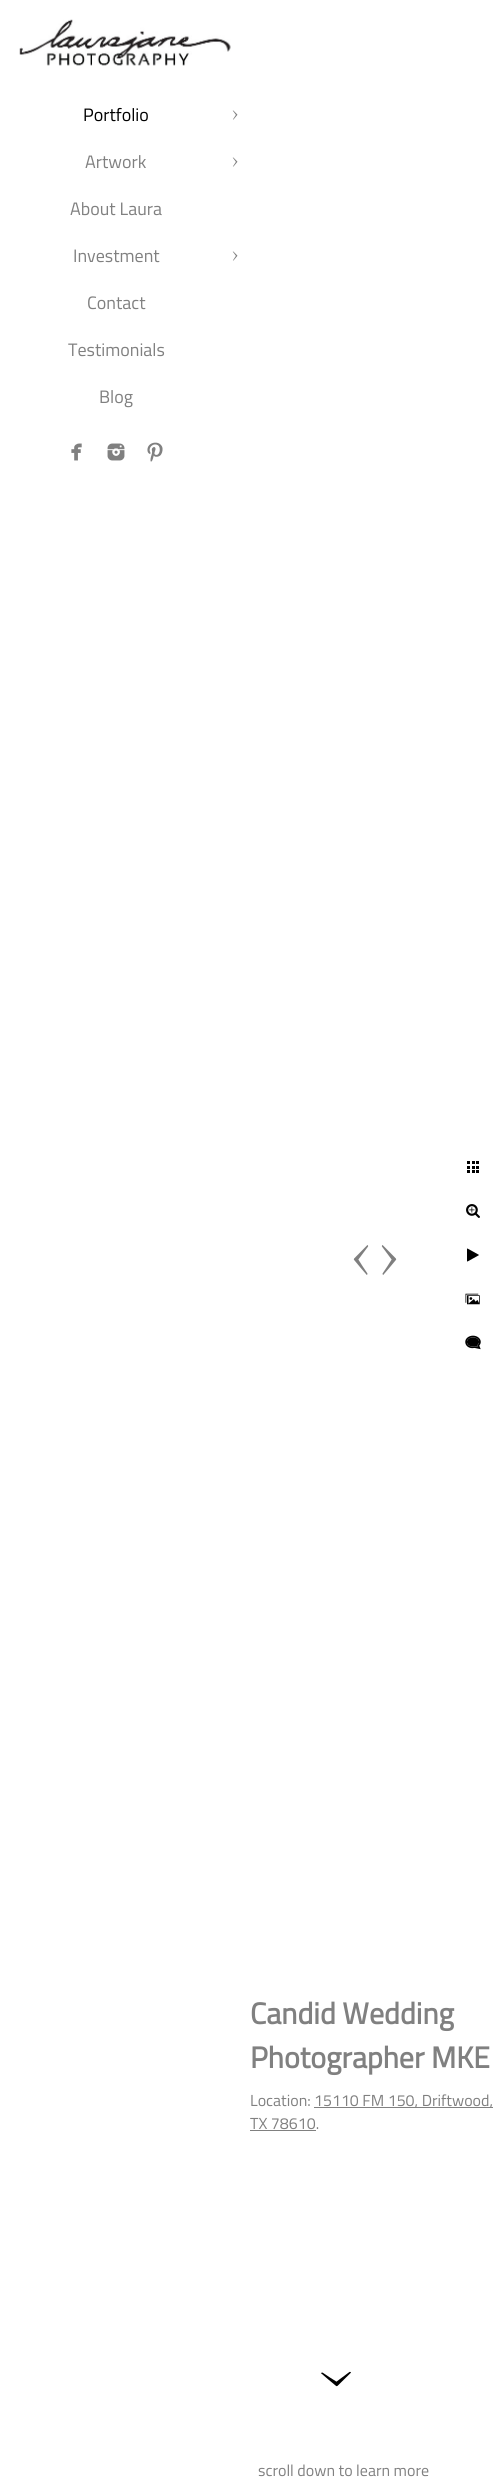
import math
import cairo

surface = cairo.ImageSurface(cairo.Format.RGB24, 500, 2490)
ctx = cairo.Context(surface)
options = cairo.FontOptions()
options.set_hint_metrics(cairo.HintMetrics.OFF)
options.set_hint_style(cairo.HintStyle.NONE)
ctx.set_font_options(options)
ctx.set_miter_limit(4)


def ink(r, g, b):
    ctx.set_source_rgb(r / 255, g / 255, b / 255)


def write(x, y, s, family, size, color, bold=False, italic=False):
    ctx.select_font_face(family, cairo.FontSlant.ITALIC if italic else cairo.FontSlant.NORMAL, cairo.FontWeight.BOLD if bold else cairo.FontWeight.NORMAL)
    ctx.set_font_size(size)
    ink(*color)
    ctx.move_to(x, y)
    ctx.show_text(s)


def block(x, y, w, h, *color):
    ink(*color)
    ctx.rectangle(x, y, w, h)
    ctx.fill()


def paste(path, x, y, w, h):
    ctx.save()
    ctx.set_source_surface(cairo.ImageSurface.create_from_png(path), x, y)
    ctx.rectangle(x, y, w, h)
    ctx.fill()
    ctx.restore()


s1 = dict(family="Titillium Web", size=18, color=(0, 0, 0))
s2 = dict(family="Titillium Web", size=18, color=(128, 128, 128))
s3 = dict(family="Titillium Web", size=30, color=(128, 128, 128), bold=True)
s4 = dict(family="Titillium Web", size=16, color=(128, 128, 128))

ink(255, 255, 255)
ctx.paint()
paste("pic1.png", 19, 19, 212, 47)
write(83, 121, "Portfolio", **s1)
paste("pic2.png", 232, 110, 6, 10)
write(85, 168, "Artwork", **s2)
paste("pic2.png", 232, 157, 6, 10)
write(70, 215, "About Laura", **s2)
write(73, 262, "Investment", **s2)
paste("pic2.png", 232, 251, 6, 10)
write(87, 309, "Contact", **s2)
write(68, 356, "Testimonials", **s2)
write(99, 403, "Blog", **s2)
paste("pic3.png", 71, 443, 11, 18)
paste("pic4.png", 107, 443, 18, 18)
paste("pic5.png", 147, 442, 16, 20)
paste("pic6.png", 467, 1161, 12, 12)
paste("pic7.png", 466, 1204, 14, 14)
paste("pic8.png", 467, 1248, 12, 14)
paste("pic9.png", 465, 1293, 15, 12)
paste("pic10.png", 465, 1335, 16, 15)
write(250, 2024, "Candid Wedding", **s3)
write(250, 2068, "Photographer MKE", **s3)
write(250, 2106, "Location:", **s4)
block(314, 2107, 179, 1, 128, 128, 128)
write(314, 2106, "15110 FM 150, Driftwood,", **s4)
write(250, 2129, "TX 78610.", **s4)
block(250, 2130, 66, 1, 128, 128, 128)
paste("pic11.png", 353, 1245, 16, 30)
paste("pic12.png", 381, 1245, 16, 30)
paste("pic13.png", 321, 2371, 30, 16)
write(258, 2476, "scroll down to learn more", **s4)
surface.write_to_png("screenshot.png")
